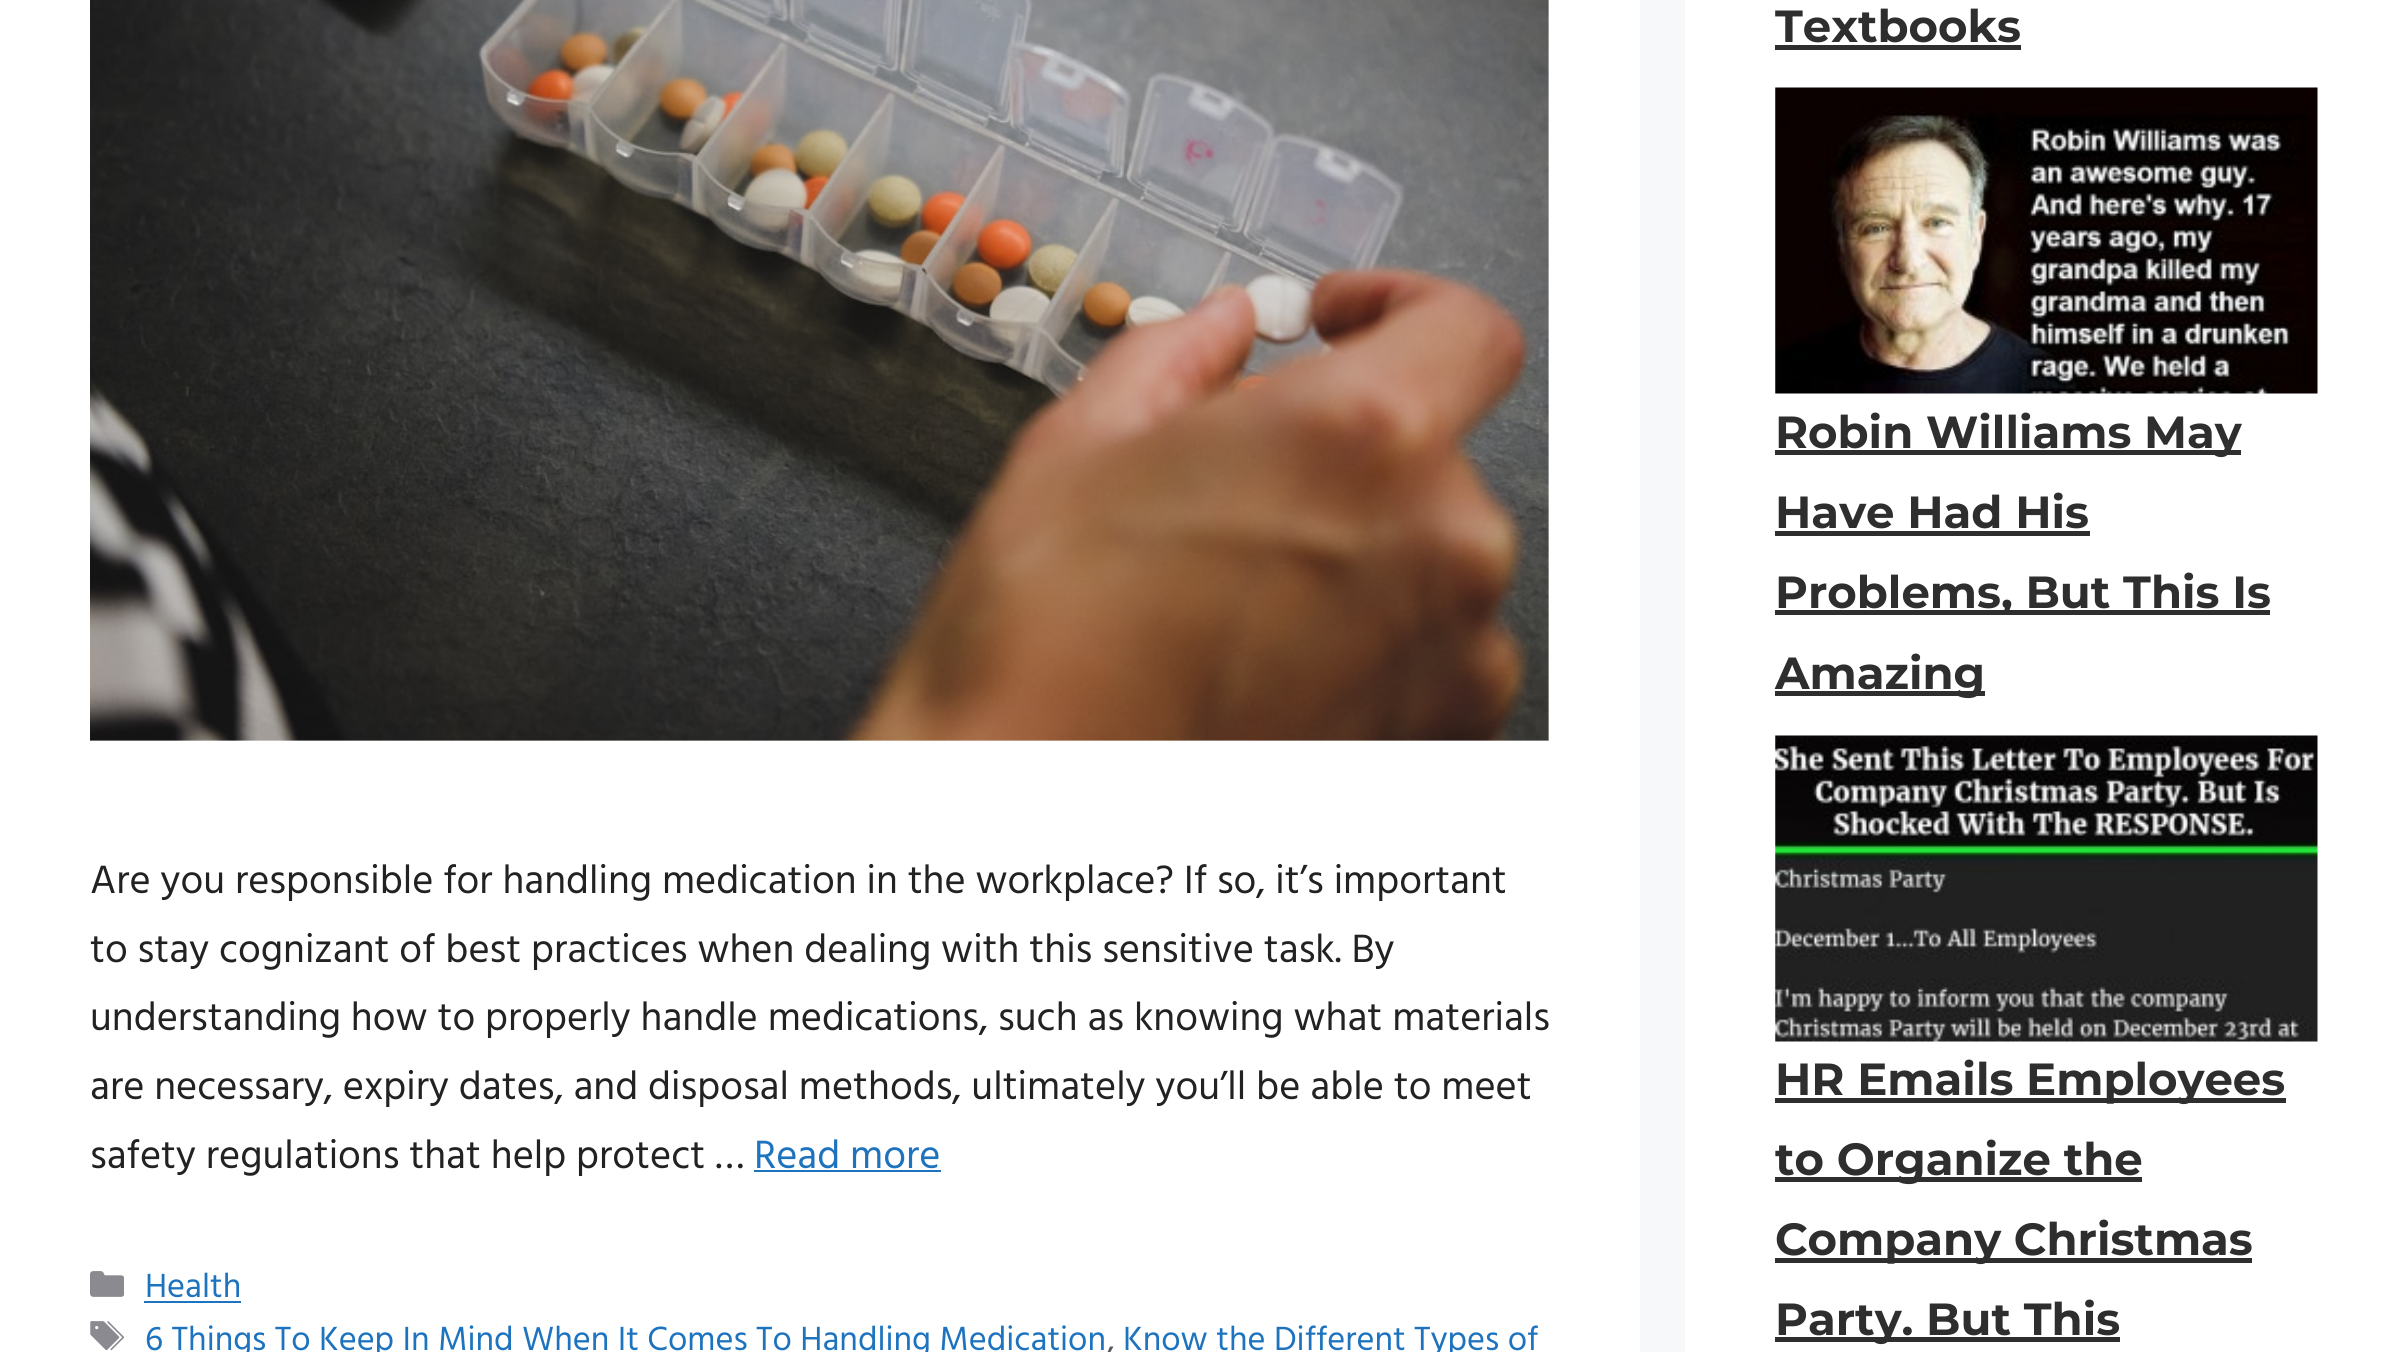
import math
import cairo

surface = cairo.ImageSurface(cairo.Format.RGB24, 2406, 1352)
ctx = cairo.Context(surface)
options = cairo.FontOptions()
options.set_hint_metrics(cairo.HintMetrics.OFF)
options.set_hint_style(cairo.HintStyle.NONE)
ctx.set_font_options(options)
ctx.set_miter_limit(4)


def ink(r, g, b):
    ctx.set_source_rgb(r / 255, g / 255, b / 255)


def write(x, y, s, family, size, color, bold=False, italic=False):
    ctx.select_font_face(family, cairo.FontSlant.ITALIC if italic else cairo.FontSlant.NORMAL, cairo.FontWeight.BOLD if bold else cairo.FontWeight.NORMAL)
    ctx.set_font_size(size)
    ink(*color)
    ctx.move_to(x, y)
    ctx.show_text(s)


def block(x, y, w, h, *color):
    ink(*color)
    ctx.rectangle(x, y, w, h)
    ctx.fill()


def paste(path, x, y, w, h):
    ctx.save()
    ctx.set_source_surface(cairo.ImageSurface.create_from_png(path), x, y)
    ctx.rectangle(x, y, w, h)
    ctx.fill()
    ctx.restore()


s1 = dict(family="Hind", size=40.5, color=(34, 34, 34))
s2 = dict(family="Hind", size=40.5, color=(30, 115, 190))
s3 = dict(family="Hind", size=34.4, color=(30, 115, 190))
s4 = dict(family="Hind", size=34.4, color=(87, 87, 96))
s5 = dict(family="Montserrat", size=45, color=(46, 46, 46), bold=True)

ink(247, 248, 249)
ctx.paint()
block(0, 0, 1640, 1352, 255, 255, 255)
paste("pic1.png", 90, 0, 1459, 741)
write(90, 893, "Are you responsible for handling medication in the workplace? If so, it’s important", **s1)
write(90, 962, "to stay cognizant of best practices when dealing with this sensitive task. By", **s1)
write(90, 1030, "understanding how to properly handle medications, such as knowing what materials", **s1)
write(90, 1099, "are necessary, expiry dates, and disposal methods, ultimately you’ll be able to meet", **s1)
write(90, 1168, "safety regulations that help protect …", **s1)
write(754, 1168, "Read more", **s2)
block(754, 1170, 187, 2, 30, 115, 190)
paste("pic2.png", 90, 1271, 34, 26)
write(145, 1297, "Health", **s3)
block(144, 1301, 97, 2, 30, 115, 190)
paste("pic3.png", 90, 1321, 34, 30)
write(145, 1350, "6 Things To Keep In Mind When It Comes To Handling Medication", **s3)
write(1107, 1350, ",", **s4)
write(1123, 1350, "Know the Different Types of", **s3)
block(1685, 0, 721, 1352, 255, 255, 255)
write(1775, 42, "Textbooks", **s5)
block(1775, 45, 246, 5, 46, 46, 46)
paste("pic4.png", 1775, 87, 543, 307)
block(1775, 450, 466, 5, 46, 46, 46)
write(1775, 448, "Robin Williams May", **s5)
write(1775, 528, "Have Had His", **s5)
block(1775, 531, 315, 5, 46, 46, 46)
block(1775, 610, 495, 5, 46, 46, 46)
write(1775, 608, "Problems, But This Is", **s5)
block(1775, 691, 210, 5, 46, 46, 46)
write(1775, 689, "Amazing", **s5)
paste("pic5.png", 1775, 735, 543, 307)
block(1775, 1098, 511, 5, 46, 46, 46)
write(1775, 1095, "HR Emails Employees", **s5)
block(1775, 1177, 367, 5, 46, 46, 46)
write(1775, 1175, "to Organize the", **s5)
block(1775, 1258, 477, 5, 46, 46, 46)
write(1775, 1255, "Company Christmas", **s5)
block(1775, 1337, 345, 5, 46, 46, 46)
write(1775, 1335, "Party. But This", **s5)
surface.write_to_png("screenshot.png")
